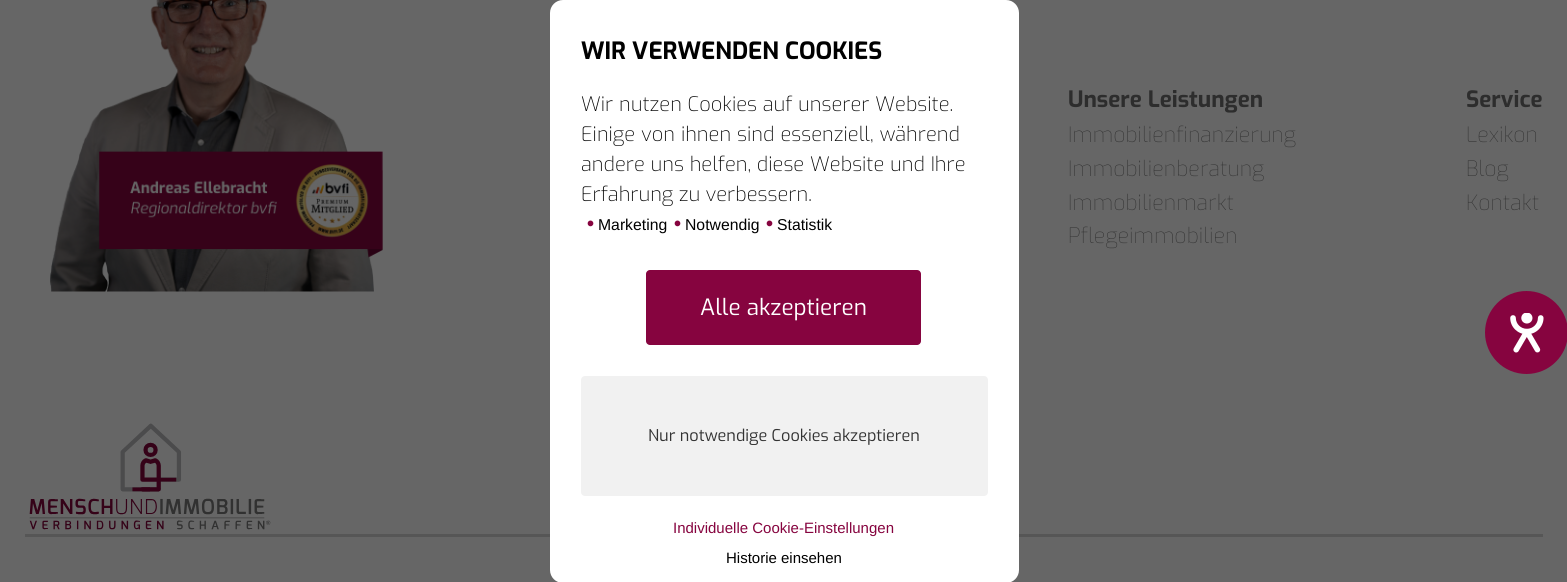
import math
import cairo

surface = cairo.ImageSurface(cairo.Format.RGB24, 1567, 582)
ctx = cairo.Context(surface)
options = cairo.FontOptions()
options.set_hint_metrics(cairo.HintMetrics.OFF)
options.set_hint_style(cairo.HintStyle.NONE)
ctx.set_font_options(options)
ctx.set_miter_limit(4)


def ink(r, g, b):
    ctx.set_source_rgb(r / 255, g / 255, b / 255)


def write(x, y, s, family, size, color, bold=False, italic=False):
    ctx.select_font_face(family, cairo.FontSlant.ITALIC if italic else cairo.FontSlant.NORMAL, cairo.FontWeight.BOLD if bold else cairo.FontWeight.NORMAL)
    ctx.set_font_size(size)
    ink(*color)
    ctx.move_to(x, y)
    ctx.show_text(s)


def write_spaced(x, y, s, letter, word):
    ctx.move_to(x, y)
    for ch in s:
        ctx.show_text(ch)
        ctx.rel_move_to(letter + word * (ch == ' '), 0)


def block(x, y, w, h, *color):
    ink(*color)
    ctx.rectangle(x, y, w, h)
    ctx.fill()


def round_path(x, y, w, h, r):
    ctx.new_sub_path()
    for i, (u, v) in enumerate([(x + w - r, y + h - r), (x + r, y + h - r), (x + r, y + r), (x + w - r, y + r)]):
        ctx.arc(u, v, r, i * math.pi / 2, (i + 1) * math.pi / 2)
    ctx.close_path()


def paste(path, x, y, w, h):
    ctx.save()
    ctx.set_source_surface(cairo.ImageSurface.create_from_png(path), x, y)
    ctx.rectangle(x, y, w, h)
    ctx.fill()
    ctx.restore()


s1 = dict(family="Exo", size=23.75, color=(0, 0, 0), bold=True)
s2 = dict(family="Exo ExtraLight", size=20, color=(0, 0, 0))
s3 = dict(family="Liberation Sans", size=20, color=(134, 4, 63), bold=True)
s4 = dict(family="Liberation Sans", size=15.75, color=(0, 0, 0))
s5 = dict(family="Exo", size=22.5, color=(255, 255, 255))
s6 = dict(family="Exo", size=16.25, color=(51, 51, 51))
s7 = dict(family="Liberation Sans", size=15, color=(134, 4, 63))
s8 = dict(family="Liberation Sans", size=15, color=(0, 0, 0))
s9 = dict(family="Exo", size=22.5, color=(45, 45, 45), bold=True)
s10 = dict(family="Exo Thin", size=21.25, color=(45, 45, 45))

ink(102, 102, 102)
ctx.paint()
block(25, 534, 1518, 3, 86, 86, 86)
ink(255, 255, 255)
round_path(550, 0, 469, 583, 13)
ctx.fill()
write(581, 59, "WIR VERWENDEN COOKIES", **s1)
ctx.select_font_face("Exo ExtraLight")
ctx.set_font_size(20)
write_spaced(581, 111, "Wir nutzen Cookies auf unserer Website.", 0, 0.25)
write_spaced(581, 141, "Einige von ihnen sind essenziell, während", 0, 0.5)
write_spaced(581, 171, "andere uns helfen, diese Website und Ihre", 0, 0.25)
write(581, 201, "Erfahrung zu verbessern.", **s2)
write(587, 230, "•", **s3)
write(598, 230, "Marketing", **s4)
write(674, 230, "•", **s3)
write(685, 230, "Notwendig", **s4)
write(766, 230, "•", **s3)
write(777, 230, "Statistik", **s4)
ink(134, 4, 63)
round_path(646, 270, 275, 75, 4)
ctx.fill()
write(700, 315, "Alle akzeptieren", **s5)
ink(241, 241, 241)
round_path(581, 376, 407, 120, 4)
ctx.fill()
write(648, 441, "Nur notwendige Cookies akzeptieren", **s6)
write(673, 533, "Individuelle Cookie-Einstellungen", **s7)
write(726, 563, "Historie einsehen", **s8)
paste("pic1.png", 50, 0, 333, 292)
write(1068, 107, "Unsere Leistungen", **s9)
write(1068, 142, "Immobilienfinanzierung", **s10)
write(1068, 176, "Immobilienberatung", **s10)
write(1068, 210, "Immobilienmarkt", **s10)
write(1068, 243, "Pflegeimmobilien", **s10)
write(1466, 107, "Service", **s9)
write(1466, 142, "Lexikon", **s10)
write(1466, 176, "Blog", **s10)
write(1466, 210, "Kontakt", **s10)
paste("pic2.png", 29, 423, 242, 107)
ink(134, 4, 63)
ctx.arc(1526.5, 332.5, 41.5, 0, 2 * math.pi)
ctx.fill()
paste("pic3.png", 1510, 313, 34, 40)
surface.write_to_png("screenshot.png")
